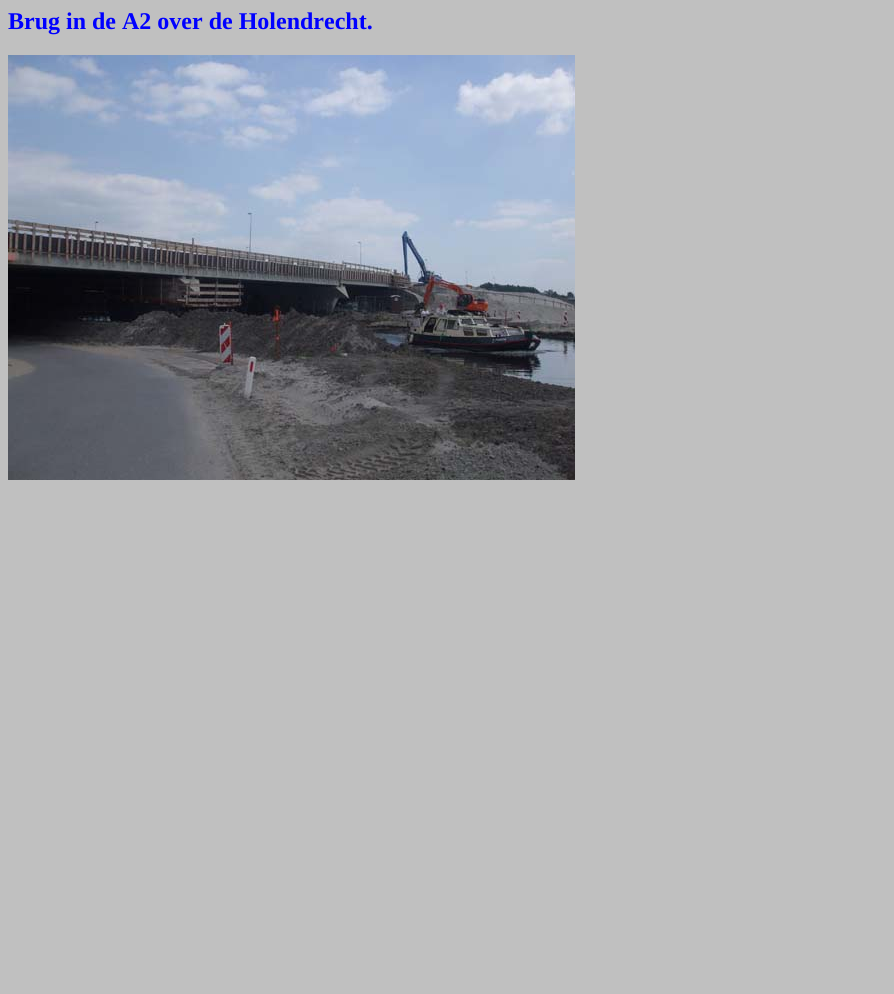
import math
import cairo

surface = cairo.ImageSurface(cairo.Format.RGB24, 894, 994)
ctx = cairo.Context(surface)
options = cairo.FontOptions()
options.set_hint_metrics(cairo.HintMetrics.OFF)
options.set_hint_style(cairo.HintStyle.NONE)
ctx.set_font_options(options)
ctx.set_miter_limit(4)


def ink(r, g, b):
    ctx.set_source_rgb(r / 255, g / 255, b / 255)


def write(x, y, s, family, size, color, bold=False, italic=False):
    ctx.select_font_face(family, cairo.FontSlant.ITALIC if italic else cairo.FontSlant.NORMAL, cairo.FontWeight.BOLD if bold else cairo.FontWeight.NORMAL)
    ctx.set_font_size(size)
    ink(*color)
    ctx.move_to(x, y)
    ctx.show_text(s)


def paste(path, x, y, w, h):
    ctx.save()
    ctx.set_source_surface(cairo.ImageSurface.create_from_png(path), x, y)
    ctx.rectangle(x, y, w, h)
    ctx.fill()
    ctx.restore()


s1 = dict(family="Liberation Serif", size=24, color=(0, 0, 255), bold=True)

ink(192, 192, 192)
ctx.paint()
write(8, 29, "Brug in de A2 over de Holendrecht.", **s1)
paste("pic1.png", 8, 55, 567, 425)
surface.write_to_png("screenshot.png")
